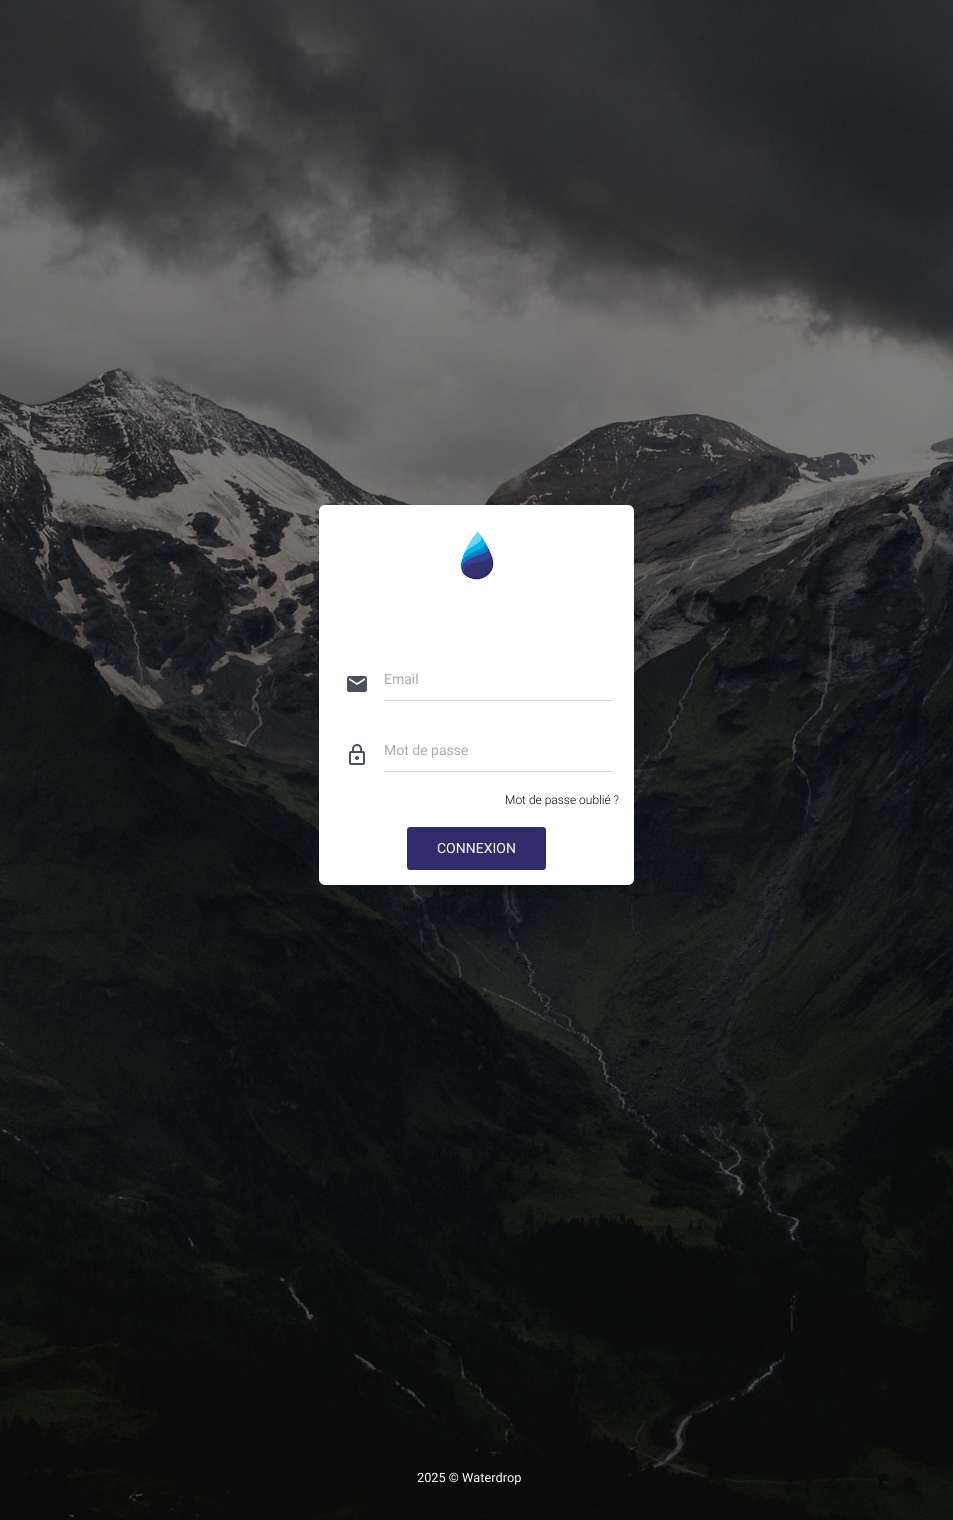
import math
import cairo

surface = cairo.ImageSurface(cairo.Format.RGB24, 953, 1520)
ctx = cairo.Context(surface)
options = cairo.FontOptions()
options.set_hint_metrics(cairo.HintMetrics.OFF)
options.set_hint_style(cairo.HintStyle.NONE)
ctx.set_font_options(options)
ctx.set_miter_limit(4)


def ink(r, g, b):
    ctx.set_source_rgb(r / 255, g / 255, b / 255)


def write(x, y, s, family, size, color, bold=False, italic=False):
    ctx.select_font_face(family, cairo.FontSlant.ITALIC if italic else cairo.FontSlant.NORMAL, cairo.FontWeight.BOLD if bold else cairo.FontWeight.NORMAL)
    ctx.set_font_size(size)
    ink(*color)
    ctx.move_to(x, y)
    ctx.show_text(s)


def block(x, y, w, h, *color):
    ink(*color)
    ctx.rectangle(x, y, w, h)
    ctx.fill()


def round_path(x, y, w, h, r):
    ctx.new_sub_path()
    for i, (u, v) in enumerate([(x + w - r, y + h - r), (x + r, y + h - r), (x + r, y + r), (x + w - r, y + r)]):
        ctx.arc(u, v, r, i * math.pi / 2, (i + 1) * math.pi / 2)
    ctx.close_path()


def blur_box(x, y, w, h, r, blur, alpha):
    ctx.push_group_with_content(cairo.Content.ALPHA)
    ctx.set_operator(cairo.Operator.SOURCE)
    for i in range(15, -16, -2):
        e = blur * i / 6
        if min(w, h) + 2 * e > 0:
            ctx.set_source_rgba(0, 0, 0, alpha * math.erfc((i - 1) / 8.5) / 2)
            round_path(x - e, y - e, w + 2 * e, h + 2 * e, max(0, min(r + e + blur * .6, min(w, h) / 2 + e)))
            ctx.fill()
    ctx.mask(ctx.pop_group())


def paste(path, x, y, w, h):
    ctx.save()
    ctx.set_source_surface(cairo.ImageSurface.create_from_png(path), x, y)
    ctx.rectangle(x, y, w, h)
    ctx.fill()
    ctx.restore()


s1 = dict(family="Roboto", size=14, color=(170, 170, 170))
s2 = dict(family="Roboto Light", size=12, color=(0, 0, 0))
s3 = dict(family="Roboto", size=14, color=(255, 255, 255))
s4 = dict(family="Roboto", size=12.75, color=(255, 255, 255))

ink(255, 255, 255)
ctx.paint()
paste("pic1.png", 0, 0, 953, 1520)
ink(0, 0, 0)
blur_box(319, 506, 315, 380, 6, 2, 0.14)
ink(255, 255, 255)
round_path(319, 505, 315, 380, 6)
ctx.fill()
paste("pic2.png", 460, 531, 34, 49)
paste("pic3.png", 347, 676, 20, 16)
block(384, 700, 230, 1, 210, 210, 210)
write(384, 684, "Email", **s1)
paste("pic4.png", 349, 744, 16, 21)
block(384, 771, 230, 1, 210, 210, 210)
write(384, 755, "Mot de passe", **s1)
write(505, 804, "Mot de passe oublié ?", **s2)
ink(48, 45, 109)
round_path(407, 827, 139, 43, 3)
ctx.fill()
write(437, 853, "CONNEXION", **s3)
write(417, 1482, "2025 © Waterdrop", **s4)
surface.write_to_png("screenshot.png")
